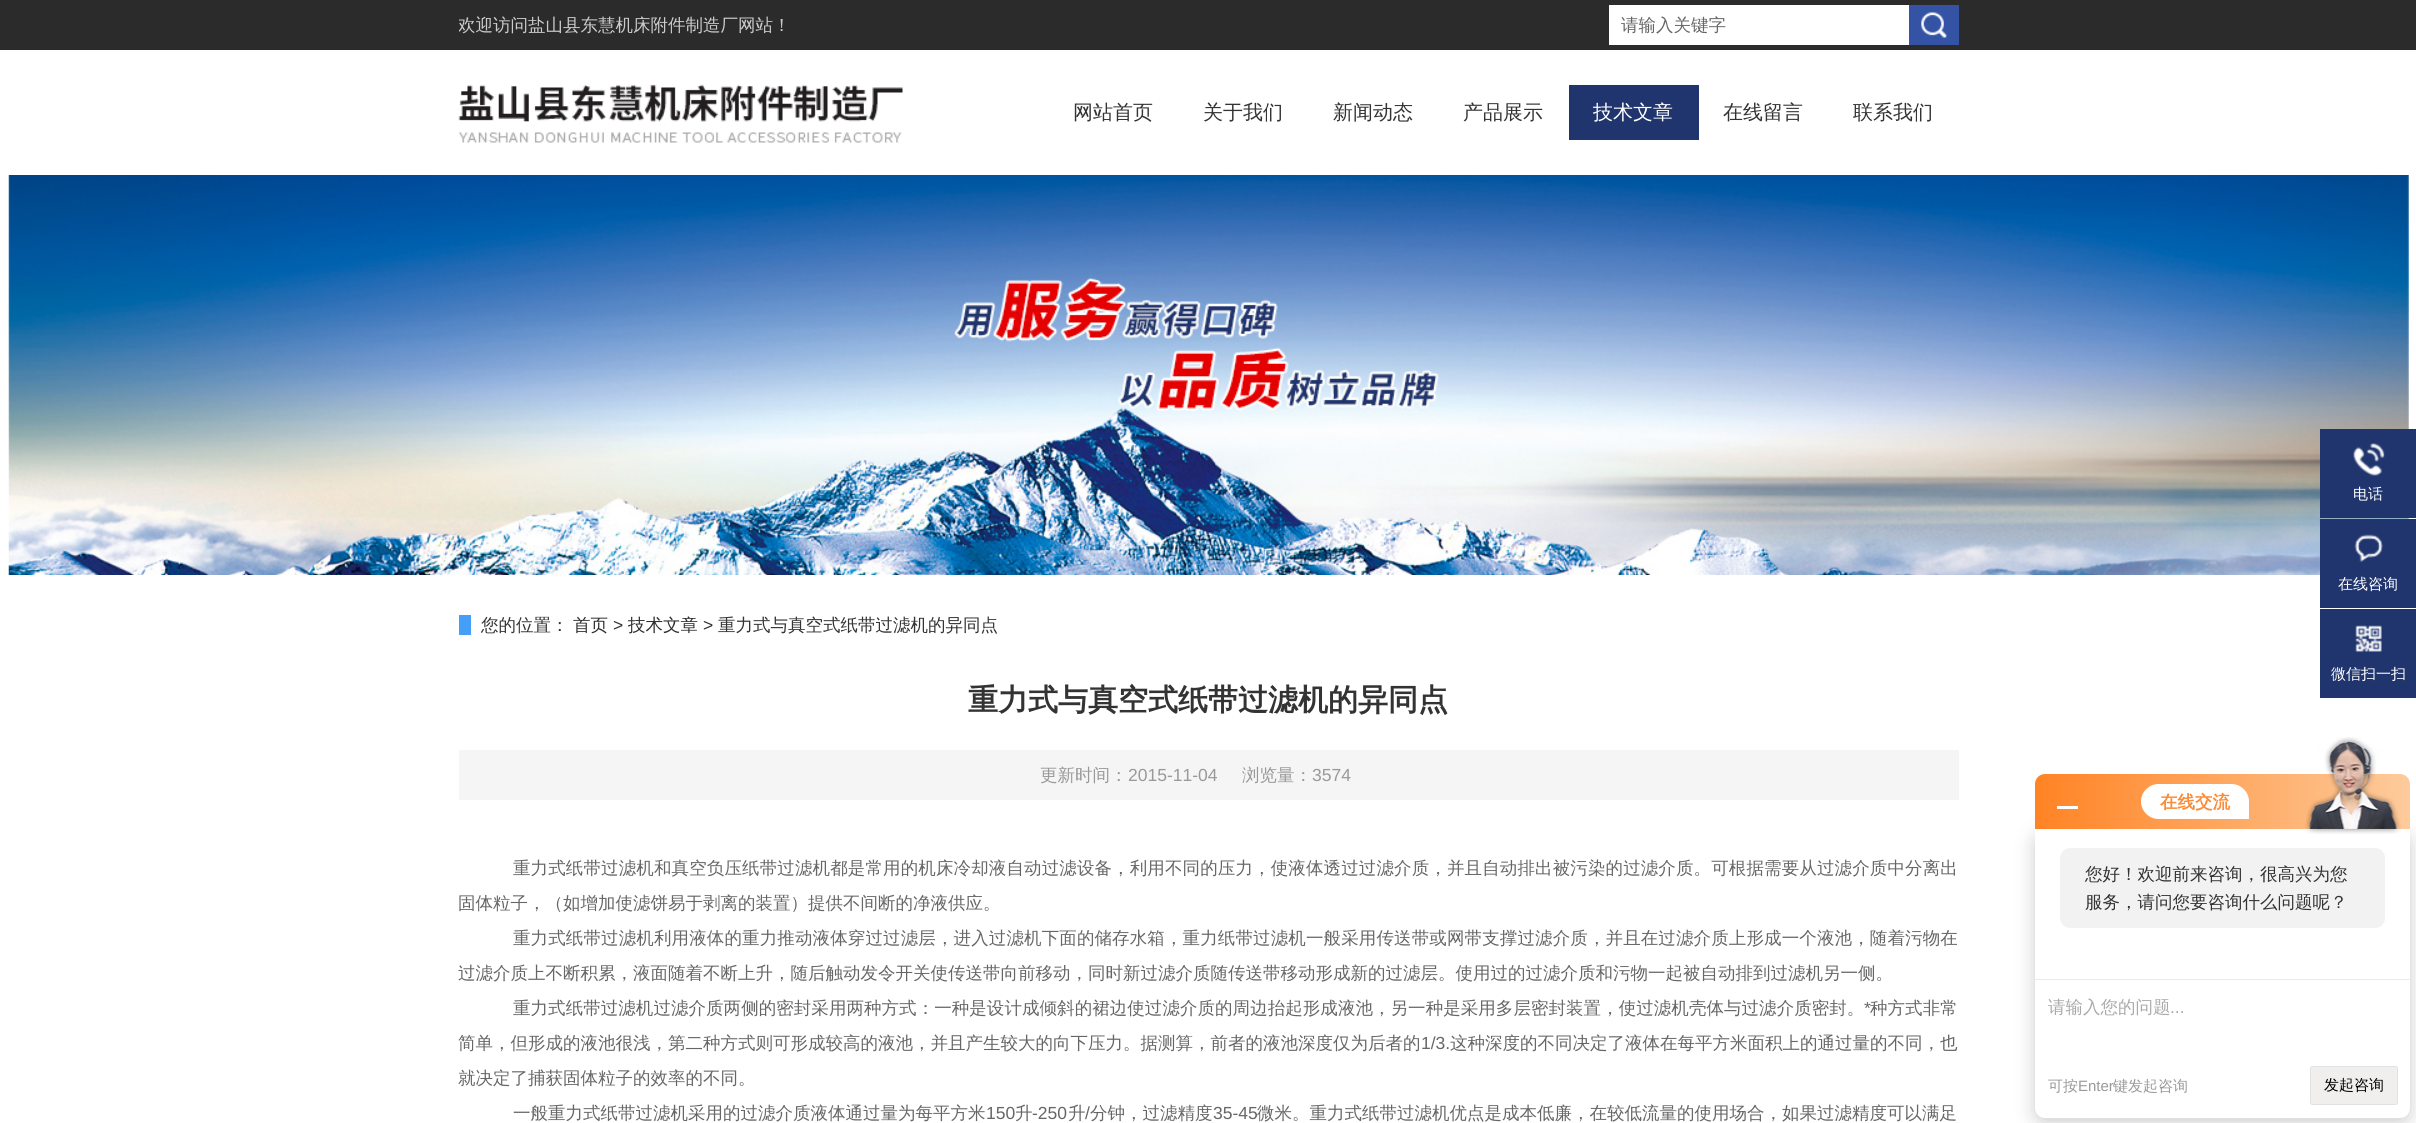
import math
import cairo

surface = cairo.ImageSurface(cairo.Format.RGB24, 2416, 1123)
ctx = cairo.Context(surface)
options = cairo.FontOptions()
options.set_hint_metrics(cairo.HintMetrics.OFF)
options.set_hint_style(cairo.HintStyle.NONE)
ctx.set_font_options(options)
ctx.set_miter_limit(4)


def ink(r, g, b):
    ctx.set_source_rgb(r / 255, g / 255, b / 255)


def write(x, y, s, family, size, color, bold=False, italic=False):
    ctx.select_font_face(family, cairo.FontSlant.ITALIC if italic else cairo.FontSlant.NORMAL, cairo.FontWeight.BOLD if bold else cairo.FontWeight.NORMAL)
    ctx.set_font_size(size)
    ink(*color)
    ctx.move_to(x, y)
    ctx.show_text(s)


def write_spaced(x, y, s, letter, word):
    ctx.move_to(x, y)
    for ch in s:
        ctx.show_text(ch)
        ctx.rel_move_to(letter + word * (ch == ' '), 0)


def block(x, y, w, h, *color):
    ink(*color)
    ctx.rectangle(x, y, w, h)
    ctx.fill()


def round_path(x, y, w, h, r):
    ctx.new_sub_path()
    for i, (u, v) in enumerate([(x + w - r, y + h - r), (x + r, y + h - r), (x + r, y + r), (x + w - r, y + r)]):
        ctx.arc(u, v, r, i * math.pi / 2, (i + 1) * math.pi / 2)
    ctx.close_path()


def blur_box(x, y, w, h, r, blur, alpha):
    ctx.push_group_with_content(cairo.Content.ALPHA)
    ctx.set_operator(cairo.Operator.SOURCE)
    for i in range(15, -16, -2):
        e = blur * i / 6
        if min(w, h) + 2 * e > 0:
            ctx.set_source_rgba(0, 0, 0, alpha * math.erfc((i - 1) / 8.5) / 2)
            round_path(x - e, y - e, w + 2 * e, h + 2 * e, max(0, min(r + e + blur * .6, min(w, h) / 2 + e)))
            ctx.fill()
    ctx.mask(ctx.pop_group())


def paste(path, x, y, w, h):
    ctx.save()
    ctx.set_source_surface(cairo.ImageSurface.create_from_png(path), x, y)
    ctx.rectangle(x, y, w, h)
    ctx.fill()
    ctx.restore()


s1 = dict(family="WenQuanYi Zen Hei Medium", size=17.5, color=(204, 204, 204))
s2 = dict(family="WenQuanYi Zen Hei Medium", size=17.5, color=(102, 102, 102))
s3 = dict(family="WenQuanYi Zen Hei Medium", size=20, color=(51, 51, 51))
s4 = dict(family="WenQuanYi Zen Hei Medium", size=20, color=(255, 255, 255))
s5 = dict(family="WenQuanYi Zen Hei Medium", size=15, color=(255, 255, 255))
s6 = dict(family="WenQuanYi Zen Hei Medium", size=17.5, color=(51, 51, 51))
s7 = dict(family="WenQuanYi Zen Hei Medium", size=17.5, color=(45, 45, 46))
s8 = dict(family="Liberation Sans", size=17.5, color=(51, 51, 51))
s9 = dict(family="WenQuanYi Zen Hei", size=30, color=(51, 51, 51), bold=True)
s10 = dict(family="WenQuanYi Zen Hei Medium", size=17.5, color=(153, 153, 153))
s11 = dict(family="Liberation Sans", size=17.5, color=(153, 153, 153))
s12 = dict(family="Liberation Sans", size=17.5, color=(102, 102, 102))
s13 = dict(family="WenQuanYi Zen Hei", size=17.5, color=(251, 139, 54), bold=True)
s14 = dict(family="WenQuanYi Zen Hei Medium", size=17.5, color=(170, 170, 170))
s15 = dict(family="Liberation Sans", size=17.5, color=(170, 170, 170))
s16 = dict(family="WenQuanYi Zen Hei Medium", size=15, color=(153, 153, 153))
s17 = dict(family="Liberation Sans", size=15, color=(153, 153, 153))
s18 = dict(family="WenQuanYi Zen Hei Medium", size=15, color=(0, 0, 0))

ink(255, 255, 255)
ctx.paint()
block(0, 0, 2416, 50, 43, 43, 43)
ctx.save()
ctx.rectangle(459, 0, 750, 50)
ctx.clip()
write(458, 31, "欢迎访问", **s1)
ctx.restore()
write(528, 31, "盐山县东慧机床附件制造厂网站！", **s1)
block(1609, 5, 300, 40, 255, 255, 255)
write(1621, 31, "请输入关键字", **s2)
block(1909, 5, 50, 40, 52, 83, 165)
paste("pic1.png", 1921, 12, 26, 26)
paste("pic2.png", 458, 84, 445, 59)
write(1073, 119, "网站首页", **s3)
write(1203, 119, "关于我们", **s3)
write(1333, 119, "新闻动态", **s3)
write(1463, 119, "产品展示", **s3)
block(1569, 85, 130, 55, 32, 53, 110)
write(1593, 119, "技术文章", **s4)
write(1723, 119, "在线留言", **s3)
write(1853, 119, "联系我们", **s3)
paste("pic3.png", 8, 175, 2401, 400)
block(2320, 429, 96, 89, 32, 53, 110)
paste("pic4.png", 2353, 443, 32, 33)
write(2353, 499, "电话", **s5)
block(2320, 519, 96, 89, 32, 53, 110)
paste("pic5.png", 2354, 534, 29, 28)
write(2338, 589, "在线咨询", **s5)
block(2320, 609, 96, 89, 32, 53, 110)
paste("pic6.png", 2355, 625, 27, 27)
write(2331, 679, "微信扫一扫", **s5)
write(481, 631, "您的位置：", **s6)
block(459, 615, 12, 20, 70, 159, 247)
write(573, 631, "首页", **s7)
write(613, 631, ">", **s8)
write(628, 631, "技术文章", **s7)
write(703, 631, ">", **s8)
write(718, 631, "重力式与真空式纸带过滤机的异同点", **s6)
write(968, 710, "重力式与真空式纸带过滤机的异同点", **s9)
block(459, 750, 1500, 50, 245, 245, 245)
write(1040, 781, "更新时间：", **s10)
write(1128, 781, "2015-11-04", **s11)
write(1242, 781, "浏览量：", **s10)
write(1312, 781, "3574", **s11)
ctx.select_font_face("WenQuanYi Zen Hei Medium")
ink(102, 102, 102)
write_spaced(513, 874, "重力式纸带过滤机和真空负压纸带过滤机都是常用的机床冷却液自动过滤设备，利用不同的压力，使液体透过过滤介质，并且自动排出被污染的过滤介质。可根据需要从过滤介质中分离出", 0.12, 0)
write(458, 909, "固体粒子，（如增加使滤饼易于剥离的装置）提供不间断的净液供应。", **s2)
write_spaced(513, 944, "重力式纸带过滤机利用液体的重力推动液体穿过过滤层，进入过滤机下面的储存水箱，重力纸带过滤机一般采用传送带或网带支撑过滤介质，并且在过滤介质上形成一个液池，随着污物在", 0.12, 0)
write(458, 979, "过滤介质上不断积累，液面随着不断上升，随后触动发令开关使传送带向前移动，同时新过滤介质随传送带移动形成新的过滤层。使用过的过滤介质和污物一起被自动排到过滤机另一侧。", **s2)
write_spaced(513, 1014, "重力式纸带过滤机过滤介质两侧的密封采用两种方式：一种是设计成倾斜的裙边使过滤介质的周边抬起形成液池，另一种是采用多层密封装置，使过滤机壳体与过滤介质密封。", 0.05, 0)
ctx.select_font_face("Liberation Sans")
write_spaced(1864, 1014, "*", 0.05, 0)
ctx.select_font_face("WenQuanYi Zen Hei Medium")
write_spaced(1870, 1014, "种方式非常", 0.05, 0)
write(458, 1049, "简单，但形成的液池很浅，第二种方式则可形成较高的液池，并且产生较大的向下压力。据测算，前者的液池深度仅为后者的", **s2)
write(1421, 1049, "1/3.", **s12)
write(1450, 1049, "这种深度的不同决定了液体在每平方米面积上的通过量的不同，也", **s2)
write(458, 1084, "就决定了捕获固体粒子的效率的不同。", **s2)
write(513, 1119, "一般重力式纸带过滤机采用的过滤介质液体通过量为每平方米", **s2)
write(986, 1119, "150", **s12)
write(1015, 1119, "升", **s2)
write(1032, 1119, "-250", **s12)
write(1068, 1119, "升", **s2)
write(1085, 1119, "/", **s12)
write(1090, 1119, "分钟，过滤精度", **s2)
write(1213, 1119, "35-45", **s12)
write(1257, 1119, "微米。重力式纸带过滤机优点是成本低廉，在较低流量的使用场合，如果过滤精度可以满足", **s2)
ink(0, 0, 0)
blur_box(2035, 834, 375, 289, 10, 10, 0.2)
gradient = cairo.LinearGradient(2035, 801, 2410, 801)
gradient.add_color_stop_rgba(0, 1, 0.514, 0.141, 1)
gradient.add_color_stop_rgba(1, 0.996, 0.796, 0.612, 1)
ctx.set_source(gradient)
ctx.new_path()
ctx.move_to(2045, 774)
ctx.line_to(2400, 774)
ctx.curve_to(2405.5, 774, 2410, 778.5, 2410, 784)
ctx.line_to(2410, 829)
ctx.line_to(2035, 829)
ctx.line_to(2035, 784)
ctx.curve_to(2035, 778.5, 2039.5, 774, 2045, 774)
ctx.close_path()
ctx.fill()
block(2057, 806, 21, 3, 255, 255, 255)
ctx.new_path()
ctx.move_to(2158.5, 784)
ctx.line_to(2231.5, 784)
ctx.curve_to(2241, 784, 2249, 792, 2249, 801.5)
ctx.line_to(2249, 819)
ctx.line_to(2158.5, 819)
ctx.curve_to(2149, 819, 2141, 811, 2141, 801.5)
ctx.curve_to(2141, 792, 2149, 784, 2158.5, 784)
ctx.close_path()
ctx.fill()
write(2160, 808, "在线交流", **s13)
ink(255, 255, 255)
ctx.new_path()
ctx.move_to(2035, 829)
ctx.line_to(2410, 829)
ctx.line_to(2410, 1108)
ctx.curve_to(2410, 1113.5, 2405.5, 1118, 2400, 1118)
ctx.line_to(2045, 1118)
ctx.curve_to(2039.5, 1118, 2035, 1113.5, 2035, 1108)
ctx.close_path()
ctx.fill()
paste("pic7.png", 2305, 737, 96, 97)
ink(242, 242, 242)
round_path(2060, 848, 325, 80, 10)
ctx.fill()
write(2085, 880, "您好！欢迎前来咨询，很高兴为您", **s6)
write(2085, 908, "服务，请问您要咨询什么问题呢？", **s6)
block(2035, 979, 375, 1, 234, 234, 234)
write(2048, 1013, "请输入您的问题", **s14)
write(2170, 1013, "...", **s15)
write(2048, 1091, "可按", **s16)
write(2078, 1091, "Enter", **s17)
write(2113, 1091, "键发起咨询", **s16)
ink(240, 239, 237)
round_path(2310.5, 1066.5, 87, 38, 2)
ctx.fill_preserve()
ink(226, 226, 226)
ctx.set_line_width(1)
ctx.stroke()
write(2324, 1090, "发起咨询", **s18)
surface.write_to_png("screenshot.png")
